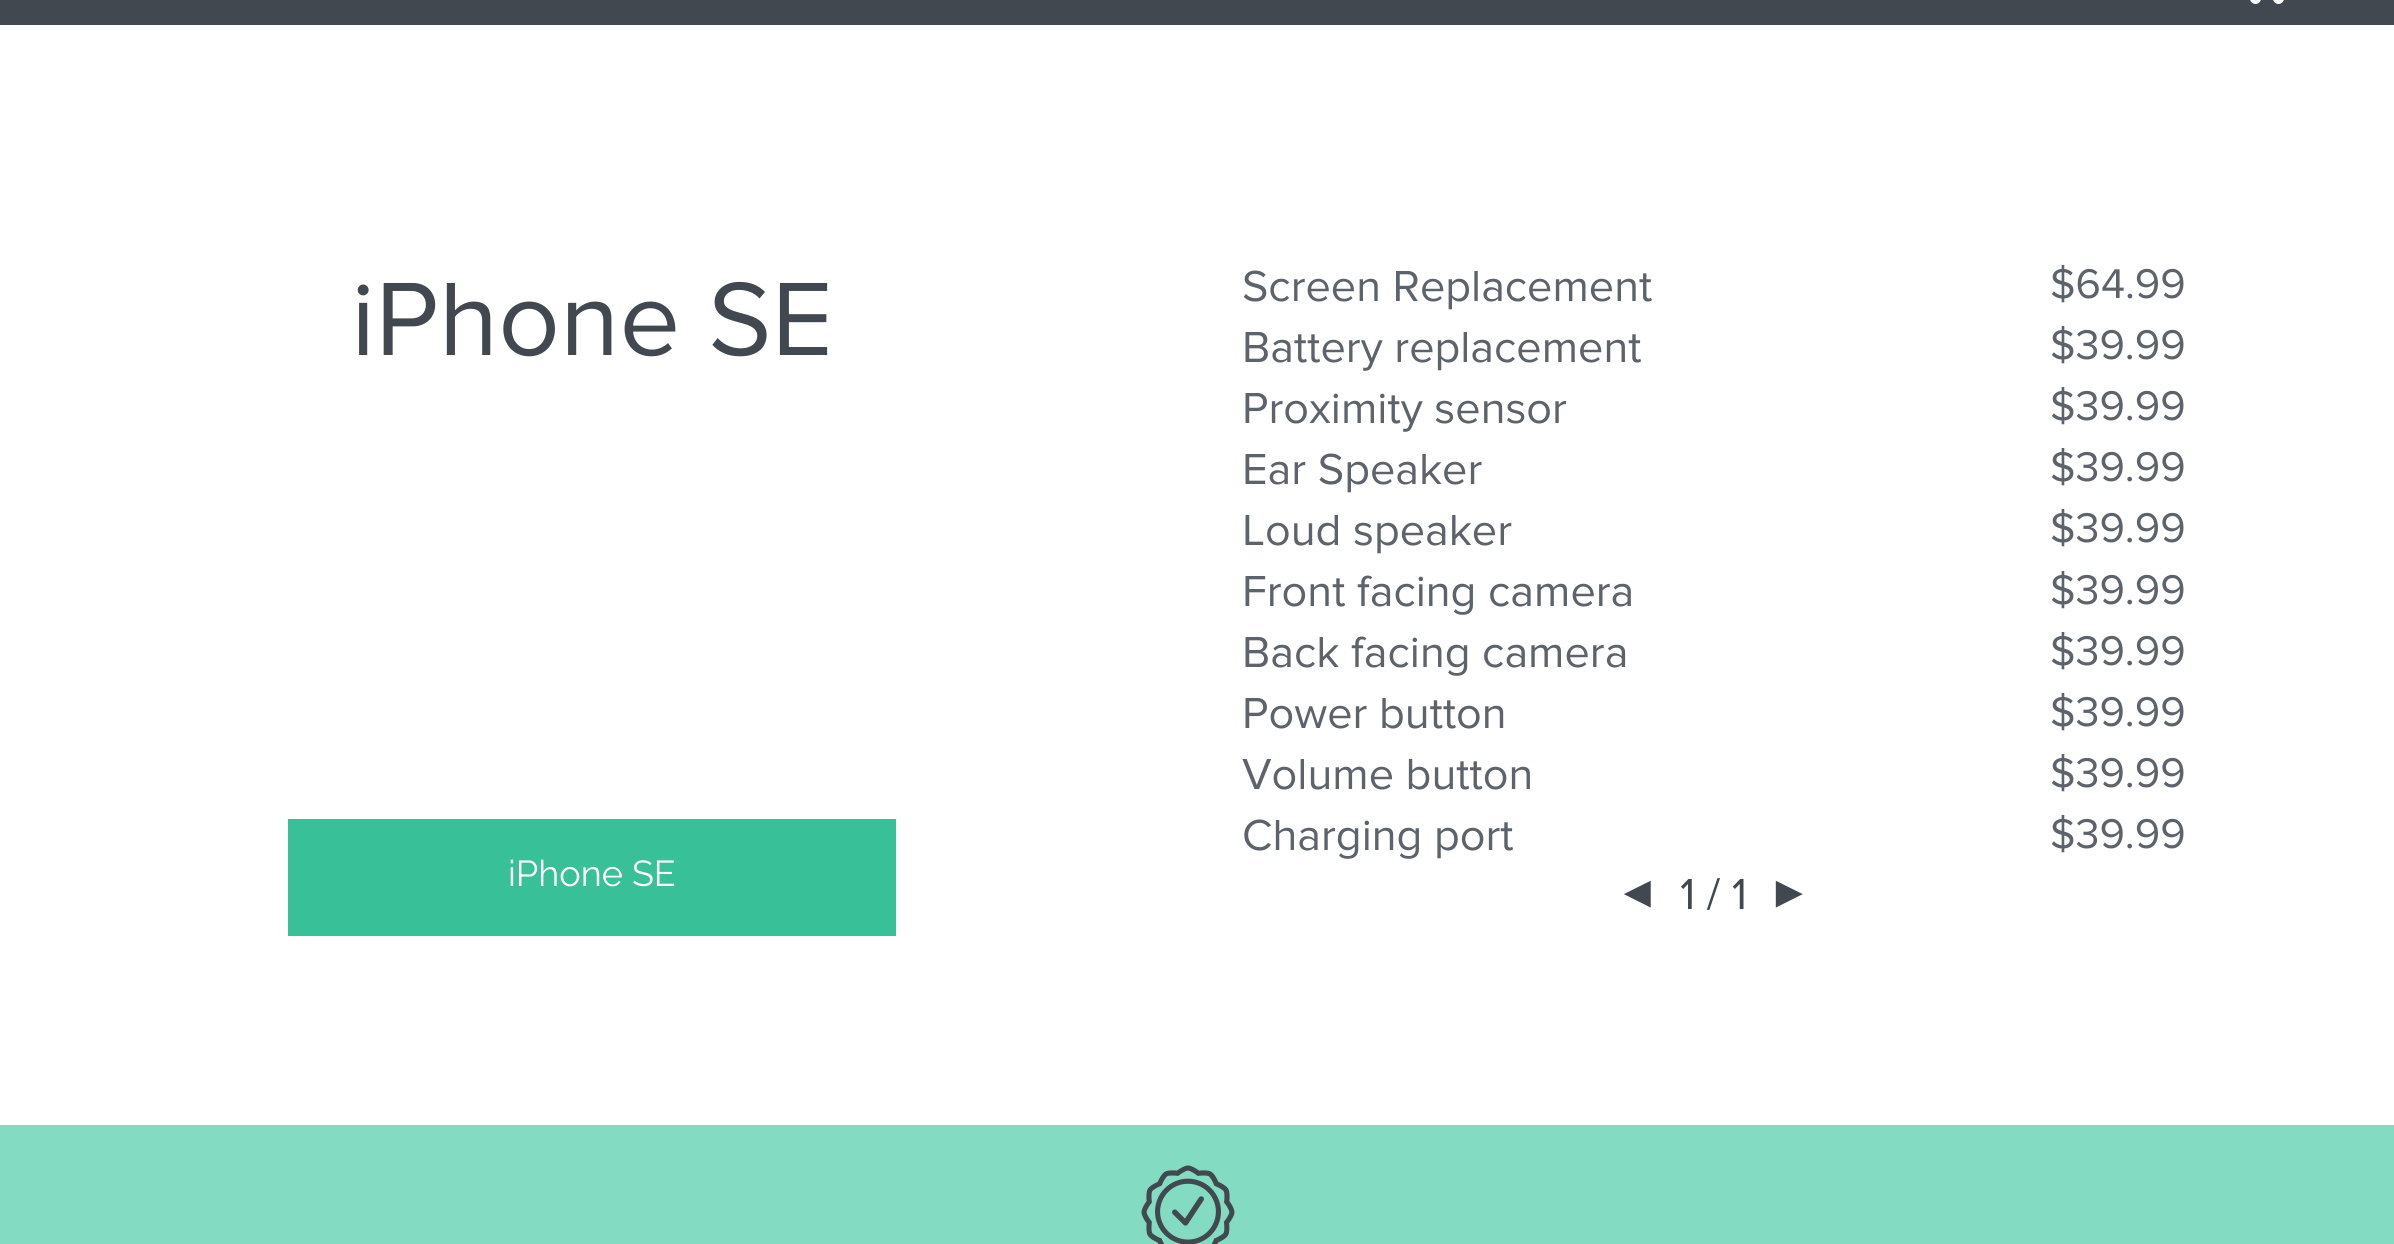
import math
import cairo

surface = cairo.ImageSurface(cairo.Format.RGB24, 2394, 1244)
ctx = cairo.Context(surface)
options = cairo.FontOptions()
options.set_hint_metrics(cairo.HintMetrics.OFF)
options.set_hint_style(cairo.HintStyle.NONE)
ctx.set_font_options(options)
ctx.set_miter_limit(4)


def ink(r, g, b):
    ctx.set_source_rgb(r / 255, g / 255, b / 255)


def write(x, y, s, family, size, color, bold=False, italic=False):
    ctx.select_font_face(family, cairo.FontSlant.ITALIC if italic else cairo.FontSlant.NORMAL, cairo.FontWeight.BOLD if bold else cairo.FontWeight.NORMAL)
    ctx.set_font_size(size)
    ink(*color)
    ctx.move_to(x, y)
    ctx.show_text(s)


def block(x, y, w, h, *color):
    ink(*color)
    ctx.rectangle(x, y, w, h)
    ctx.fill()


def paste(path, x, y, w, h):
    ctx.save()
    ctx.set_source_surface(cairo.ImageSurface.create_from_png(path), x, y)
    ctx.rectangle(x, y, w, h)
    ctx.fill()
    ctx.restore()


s1 = dict(family="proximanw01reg", size=108, color=(66, 72, 79))
s2 = dict(family="Raleway", size=36, color=(255, 255, 255))
s3 = dict(family="proximanw01reg", size=45, color=(93, 99, 107))
s4 = dict(family="proximanw01reg", size=43, color=(93, 99, 107))
s5 = dict(family="Liberation Sans", size=45, color=(66, 72, 79))
s6 = dict(family="proximanw01reg", size=45, color=(66, 72, 79))

ink(255, 255, 255)
ctx.paint()
block(0, 0, 2394, 25, 66, 72, 79)
ink(255, 255, 255)
ctx.arc(2278.5, -1.5, 5.5, 0, 2 * math.pi)
ctx.fill()
ctx.arc(2255.5, -1.5, 5.5, 0, 2 * math.pi)
ctx.fill()
write(351, 355, "iPhone SE", **s1)
block(288, 819, 608, 117, 56, 192, 152)
write(508, 886, "iPhone SE", **s2)
write(1242, 301, "Screen Replacement", **s3)
write(2050, 298, "$64.99", **s4)
write(1242, 362, "Battery replacement", **s3)
write(2050, 359, "$39.99", **s4)
write(1242, 423, "Proximity sensor", **s3)
write(2050, 420, "$39.99", **s4)
write(1242, 484, "Ear Speaker", **s3)
write(2050, 481, "$39.99", **s4)
write(1242, 545, "Loud speaker", **s3)
write(2050, 542, "$39.99", **s4)
write(1242, 606, "Front facing camera", **s3)
write(2050, 604, "$39.99", **s4)
write(1242, 667, "Back facing camera", **s3)
write(2050, 665, "$39.99", **s4)
write(1242, 728, "Power button", **s3)
write(2050, 726, "$39.99", **s4)
write(1242, 789, "Volume button", **s3)
write(2050, 787, "$39.99", **s4)
write(1242, 850, "Charging port", **s3)
write(2050, 848, "$39.99", **s4)
write(1615, 907, "◄", **s5)
write(1680, 909, "1 / 1", **s6)
write(1767, 907, "►", **s5)
block(0, 1125, 2394, 119, 131, 219, 193)
paste("pic1.png", 1141, 1165, 94, 79)
surface.write_to_png("screenshot.png")
